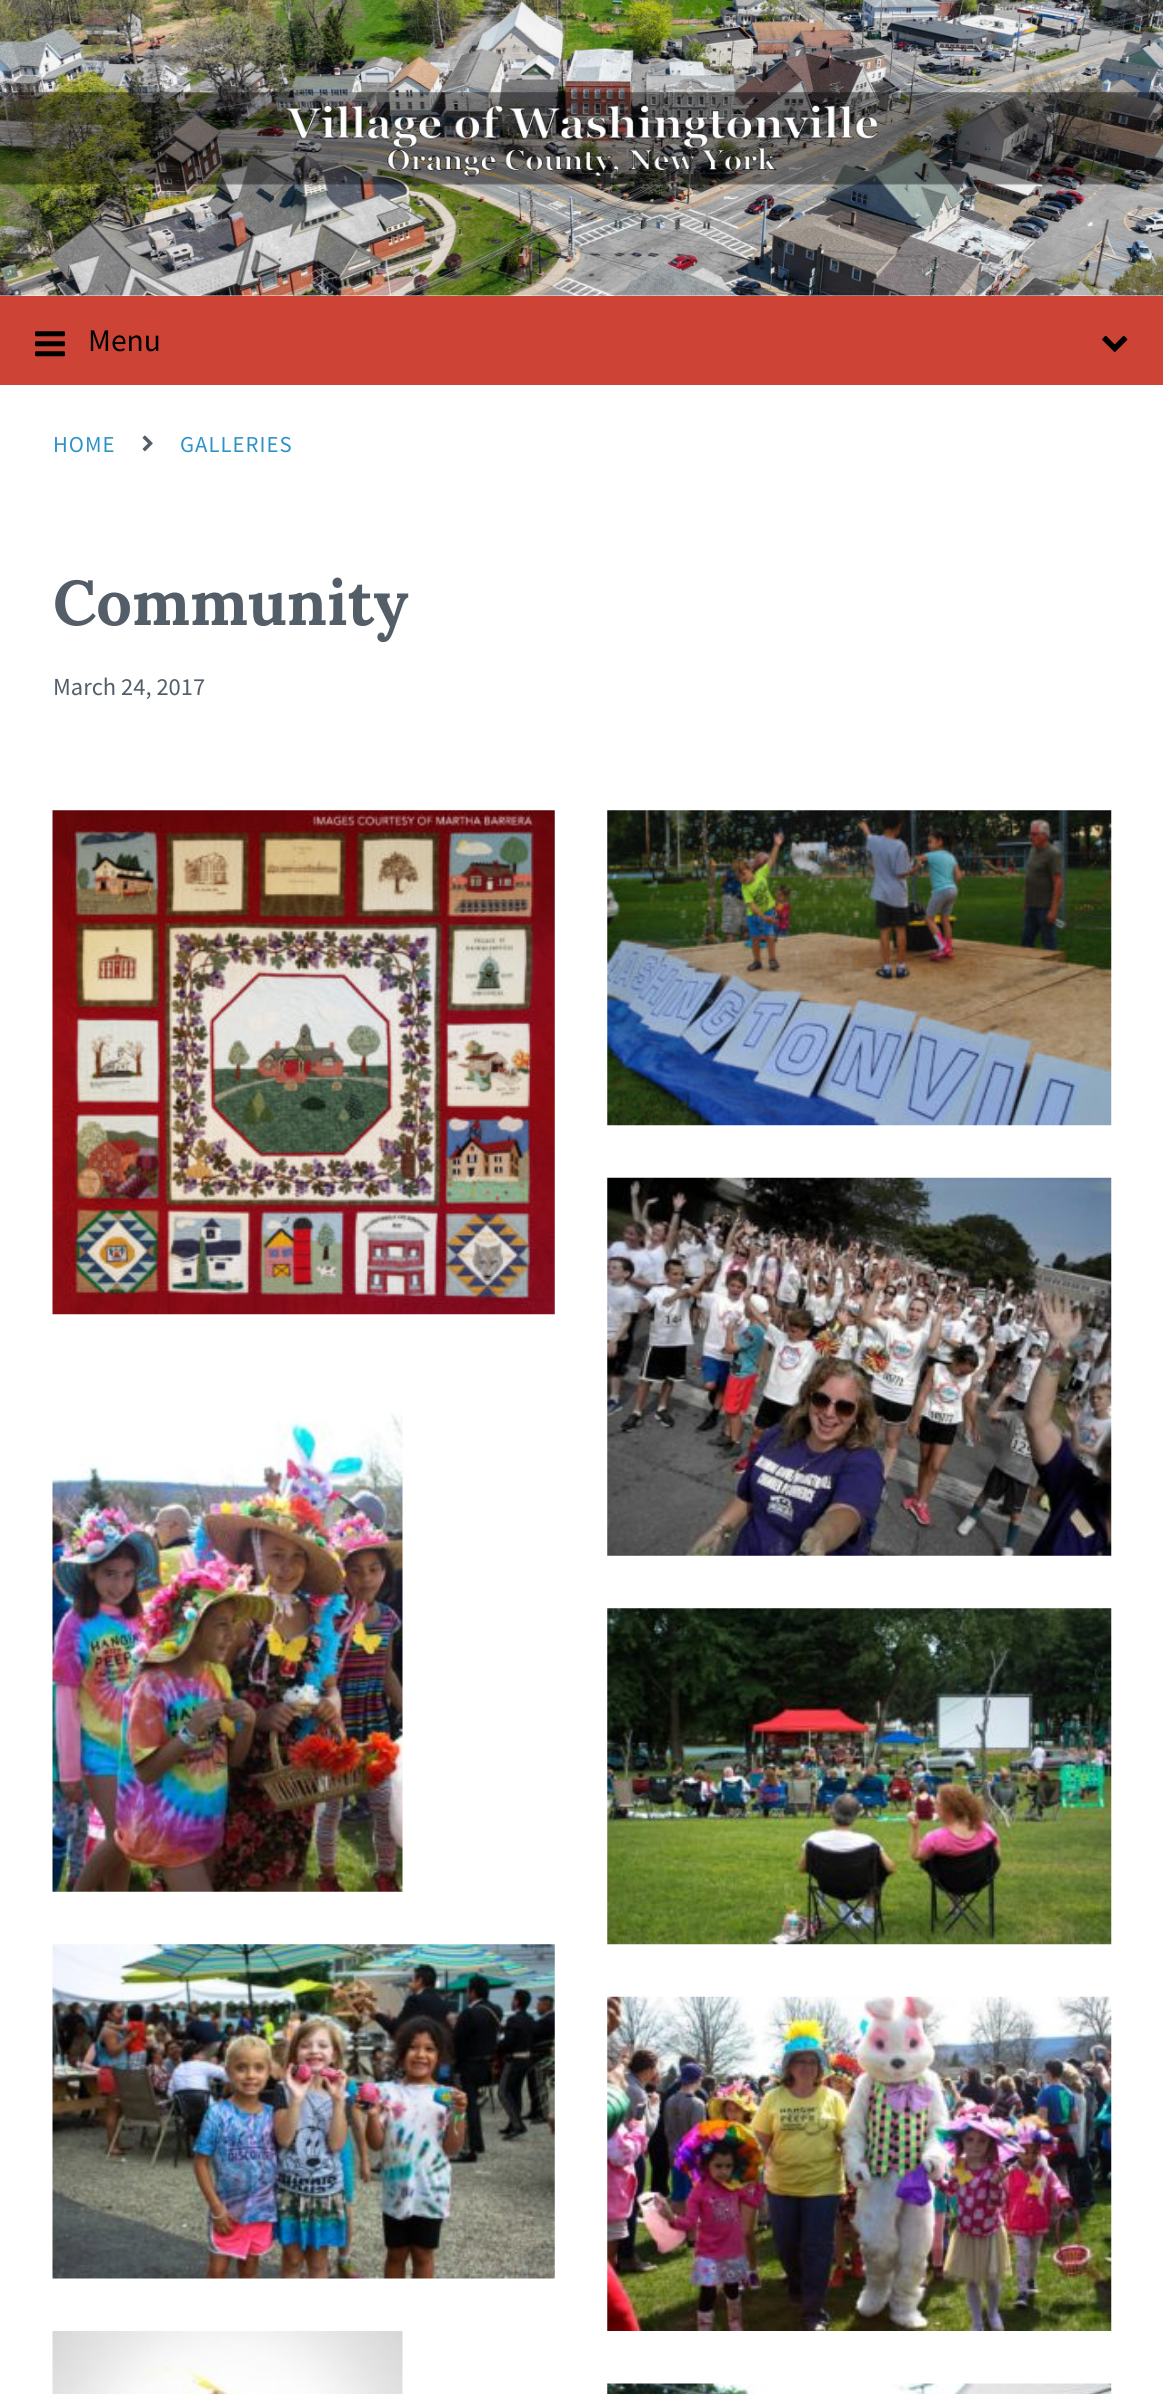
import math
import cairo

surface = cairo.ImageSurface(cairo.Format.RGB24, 1163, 2394)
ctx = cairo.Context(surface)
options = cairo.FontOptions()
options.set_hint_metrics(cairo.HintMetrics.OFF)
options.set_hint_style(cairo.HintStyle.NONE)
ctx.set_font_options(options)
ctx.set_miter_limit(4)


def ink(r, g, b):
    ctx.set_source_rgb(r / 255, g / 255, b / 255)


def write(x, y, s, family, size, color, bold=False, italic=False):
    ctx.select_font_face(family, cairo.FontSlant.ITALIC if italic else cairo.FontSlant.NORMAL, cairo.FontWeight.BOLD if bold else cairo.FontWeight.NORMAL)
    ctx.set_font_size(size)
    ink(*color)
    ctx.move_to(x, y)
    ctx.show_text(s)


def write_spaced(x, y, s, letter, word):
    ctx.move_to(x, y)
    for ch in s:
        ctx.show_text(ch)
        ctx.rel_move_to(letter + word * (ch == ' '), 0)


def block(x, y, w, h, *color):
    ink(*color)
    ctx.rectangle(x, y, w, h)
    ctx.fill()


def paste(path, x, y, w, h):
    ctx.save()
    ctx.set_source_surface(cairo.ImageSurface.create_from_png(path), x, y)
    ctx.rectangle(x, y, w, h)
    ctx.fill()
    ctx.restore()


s1 = dict(family="Source Sans Pro", size=31.5, color=(0, 0, 0))
s2 = dict(family="Lora", size=63, color=(84, 94, 105), bold=True)
s3 = dict(family="Source Sans Pro", size=24.5, color=(84, 94, 105))

ink(255, 255, 255)
ctx.paint()
paste("pic1.png", 0, 0, 1163, 296)
block(0, 296, 1163, 89, 205, 67, 53)
paste("pic2.png", 35, 331, 30, 26)
write(88, 351, "Menu", **s1)
paste("pic3.png", 1102, 335, 26, 17)
ctx.set_font_size(22.75)
ink(45, 147, 197)
write_spaced(53, 452, "HOME", 1, 0)
paste("pic4.png", 142, 435, 11, 17)
write_spaced(180, 452, "GALLERIES", 1, 0)
write(53, 625, "Community", **s2)
write(53, 695, "March 24, 2017", **s3)
paste("pic5.png", 52, 810, 503, 505)
paste("pic6.png", 607, 810, 505, 316)
paste("pic7.png", 607, 1177, 505, 379)
paste("pic8.png", 52, 1412, 351, 480)
paste("pic9.png", 607, 1608, 505, 337)
paste("pic10.png", 52, 1944, 503, 335)
paste("pic11.png", 607, 1996, 505, 335)
paste("pic12.png", 52, 2331, 351, 63)
paste("pic13.png", 607, 2383, 505, 11)
surface.write_to_png("screenshot.png")
